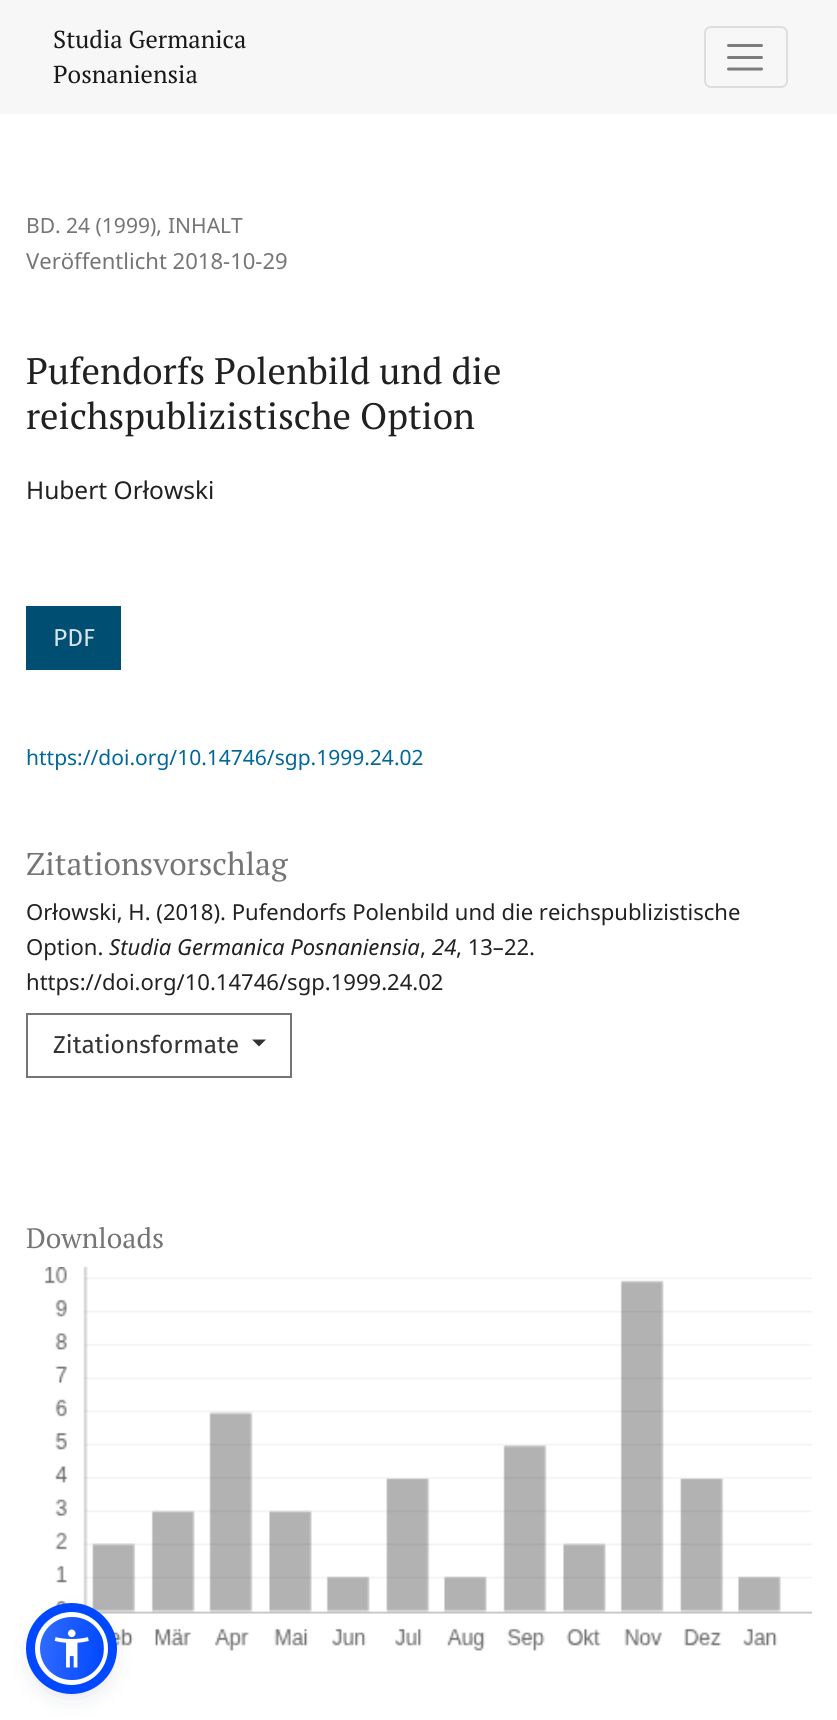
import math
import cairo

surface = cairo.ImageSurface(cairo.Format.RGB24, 837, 1720)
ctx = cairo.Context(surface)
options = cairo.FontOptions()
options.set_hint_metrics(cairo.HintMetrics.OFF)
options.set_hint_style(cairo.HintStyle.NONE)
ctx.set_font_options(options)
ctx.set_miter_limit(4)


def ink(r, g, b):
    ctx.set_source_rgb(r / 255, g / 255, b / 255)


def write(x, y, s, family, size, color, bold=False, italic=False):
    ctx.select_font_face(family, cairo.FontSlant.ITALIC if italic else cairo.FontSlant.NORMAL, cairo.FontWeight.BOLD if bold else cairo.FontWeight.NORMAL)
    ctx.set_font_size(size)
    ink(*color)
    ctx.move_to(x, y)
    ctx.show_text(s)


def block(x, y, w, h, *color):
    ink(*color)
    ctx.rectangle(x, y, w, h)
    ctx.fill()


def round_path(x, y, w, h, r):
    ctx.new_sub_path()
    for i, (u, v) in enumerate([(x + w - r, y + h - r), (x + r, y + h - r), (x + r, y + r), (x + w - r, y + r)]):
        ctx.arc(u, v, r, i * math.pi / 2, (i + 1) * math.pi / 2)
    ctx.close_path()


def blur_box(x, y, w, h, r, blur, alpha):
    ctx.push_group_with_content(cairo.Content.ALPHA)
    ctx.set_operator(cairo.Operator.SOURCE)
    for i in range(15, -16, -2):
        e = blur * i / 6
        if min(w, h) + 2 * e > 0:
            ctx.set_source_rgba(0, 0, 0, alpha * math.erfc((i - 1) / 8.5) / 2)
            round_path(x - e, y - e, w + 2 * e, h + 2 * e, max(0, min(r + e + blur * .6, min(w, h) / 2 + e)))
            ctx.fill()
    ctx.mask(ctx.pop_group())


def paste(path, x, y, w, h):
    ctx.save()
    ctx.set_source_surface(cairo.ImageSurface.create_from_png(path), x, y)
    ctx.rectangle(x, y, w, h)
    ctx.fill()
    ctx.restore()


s1 = dict(family="PT Serif", size=24.5, color=(25, 25, 25))
s2 = dict(family="Noto Sans", size=21, color=(117, 117, 117))
s3 = dict(family="Noto Sans", size=22.05, color=(117, 117, 117))
s4 = dict(family="PT Serif", size=36.75, color=(33, 33, 33))
s5 = dict(family="Noto Sans", size=24.5, color=(33, 33, 33))
s6 = dict(family="Fira Sans", size=24.5, color=(217, 228, 234))
s7 = dict(family="Noto Sans", size=21, color=(0, 103, 152))
s8 = dict(family="PT Serif", size=31.5, color=(117, 117, 117))
s9 = dict(family="Noto Sans", size=22.05, color=(33, 33, 33))
s10 = dict(family="Noto Sans", size=22.05, color=(33, 33, 33), italic=True)
s11 = dict(family="Fira Sans", size=24.5, color=(51, 51, 51))
s12 = dict(family="PT Serif", size=28, color=(117, 117, 117))

ink(255, 255, 255)
ctx.paint()
block(0, 0, 837, 114, 247, 247, 247)
write(53, 48, "Studia Germanica", **s1)
write(53, 83, "Posnaniensia", **s1)
round_path(705, 27, 82, 60, 6)
ink(222, 222, 222)
ctx.stroke()
ctx.new_path()
ctx.move_to(728.5, 45.5)
ctx.line_to(761.5, 45.5)
ctx.move_to(728.5, 57.5)
ctx.line_to(761.5, 57.5)
ctx.move_to(728.5, 69)
ctx.line_to(761.5, 69)
ink(124, 124, 124)
ctx.set_line_width(3)
ctx.set_line_cap(cairo.LineCap.ROUND)
ctx.stroke()
write(26, 233, "BD. 24 (1999)", **s2)
write(156, 233, ",", **s3)
write(168, 233, "INHALT", **s2)
write(26, 269, "Veröffentlicht 2018-10-29", **s3)
write(26, 384, "Pufendorfs Polenbild und die", **s4)
write(26, 429, "reichspublizistische Option", **s4)
write(26, 499, "Hubert Orłowski", **s5)
block(26, 606, 95, 64, 1, 78, 115)
write(53, 646, "PDF", **s6)
write(26, 765, "https://doi.org/10.14746/sgp.1999.24.02", **s7)
write(26, 875, "Zitationsvorschlag", **s8)
write(26, 920, "Orłowski, H. (2018). Pufendorfs Polenbild und die reichspublizistische", **s9)
write(26, 955, "Option.", **s9)
write(109, 955, "Studia Germanica Posnaniensia", **s10)
write(420, 955, ",", **s9)
write(432, 955, "24", **s10)
write(456, 955, ", 13–22.", **s9)
write(26, 990, "https://doi.org/10.14746/sgp.1999.24.02", **s9)
ctx.rectangle(27, 1014, 264, 63)
ink(117, 117, 117)
ctx.set_line_width(2)
ctx.set_line_cap(cairo.LineCap.BUTT)
ctx.stroke()
write(53, 1053, "Zitationsformate", **s11)
ctx.new_path()
ctx.move_to(252, 1039.5)
ctx.line_to(266, 1039.5)
ctx.line_to(259, 1046.5)
ctx.close_path()
ctx.fill()
write(26, 1248, "Downloads", **s12)
paste("pic1.png", 44, 1267, 768, 384)
ink(93, 100, 148)
blur_box(35, 1615, 74, 74, 37, 3.5, 0.2)
ink(37, 44, 97)
blur_box(35, 1621, 74, 73, 36.5, 13, 0.15)
ctx.save()
round_path(35, 1612, 74, 73, 36.5)
ctx.clip()
gradient = cairo.LinearGradient(37, 1645, 106, 1652)
gradient.add_color_stop_rgba(0, 0.196, 0.424, 1, 1)
gradient.add_color_stop_rgba(1, 0, 0.282, 1, 1)
ctx.set_source(gradient)
ctx.rectangle(40, 1617, 63, 63)
ctx.fill()
gradient = cairo.LinearGradient(100, 1645, 169, 1652)
gradient.add_color_stop_rgba(0, 0.196, 0.424, 1, 1)
gradient.add_color_stop_rgba(1, 0, 0.282, 1, 1)
ctx.set_source(gradient)
ctx.rectangle(103, 1636, 4, 31)
ctx.fill()
ctx.restore()
round_path(37.5, 1614.5, 69, 68, 34)
ink(255, 255, 255)
ctx.set_line_width(5)
ctx.stroke()
ctx.arc(71.5, 1648.5, 41, 0, 2 * math.pi)
ink(0, 72, 255)
ctx.set_line_width(9)
ctx.stroke()
paste("pic2.png", 54, 1629, 35, 39)
surface.write_to_png("screenshot.png")
